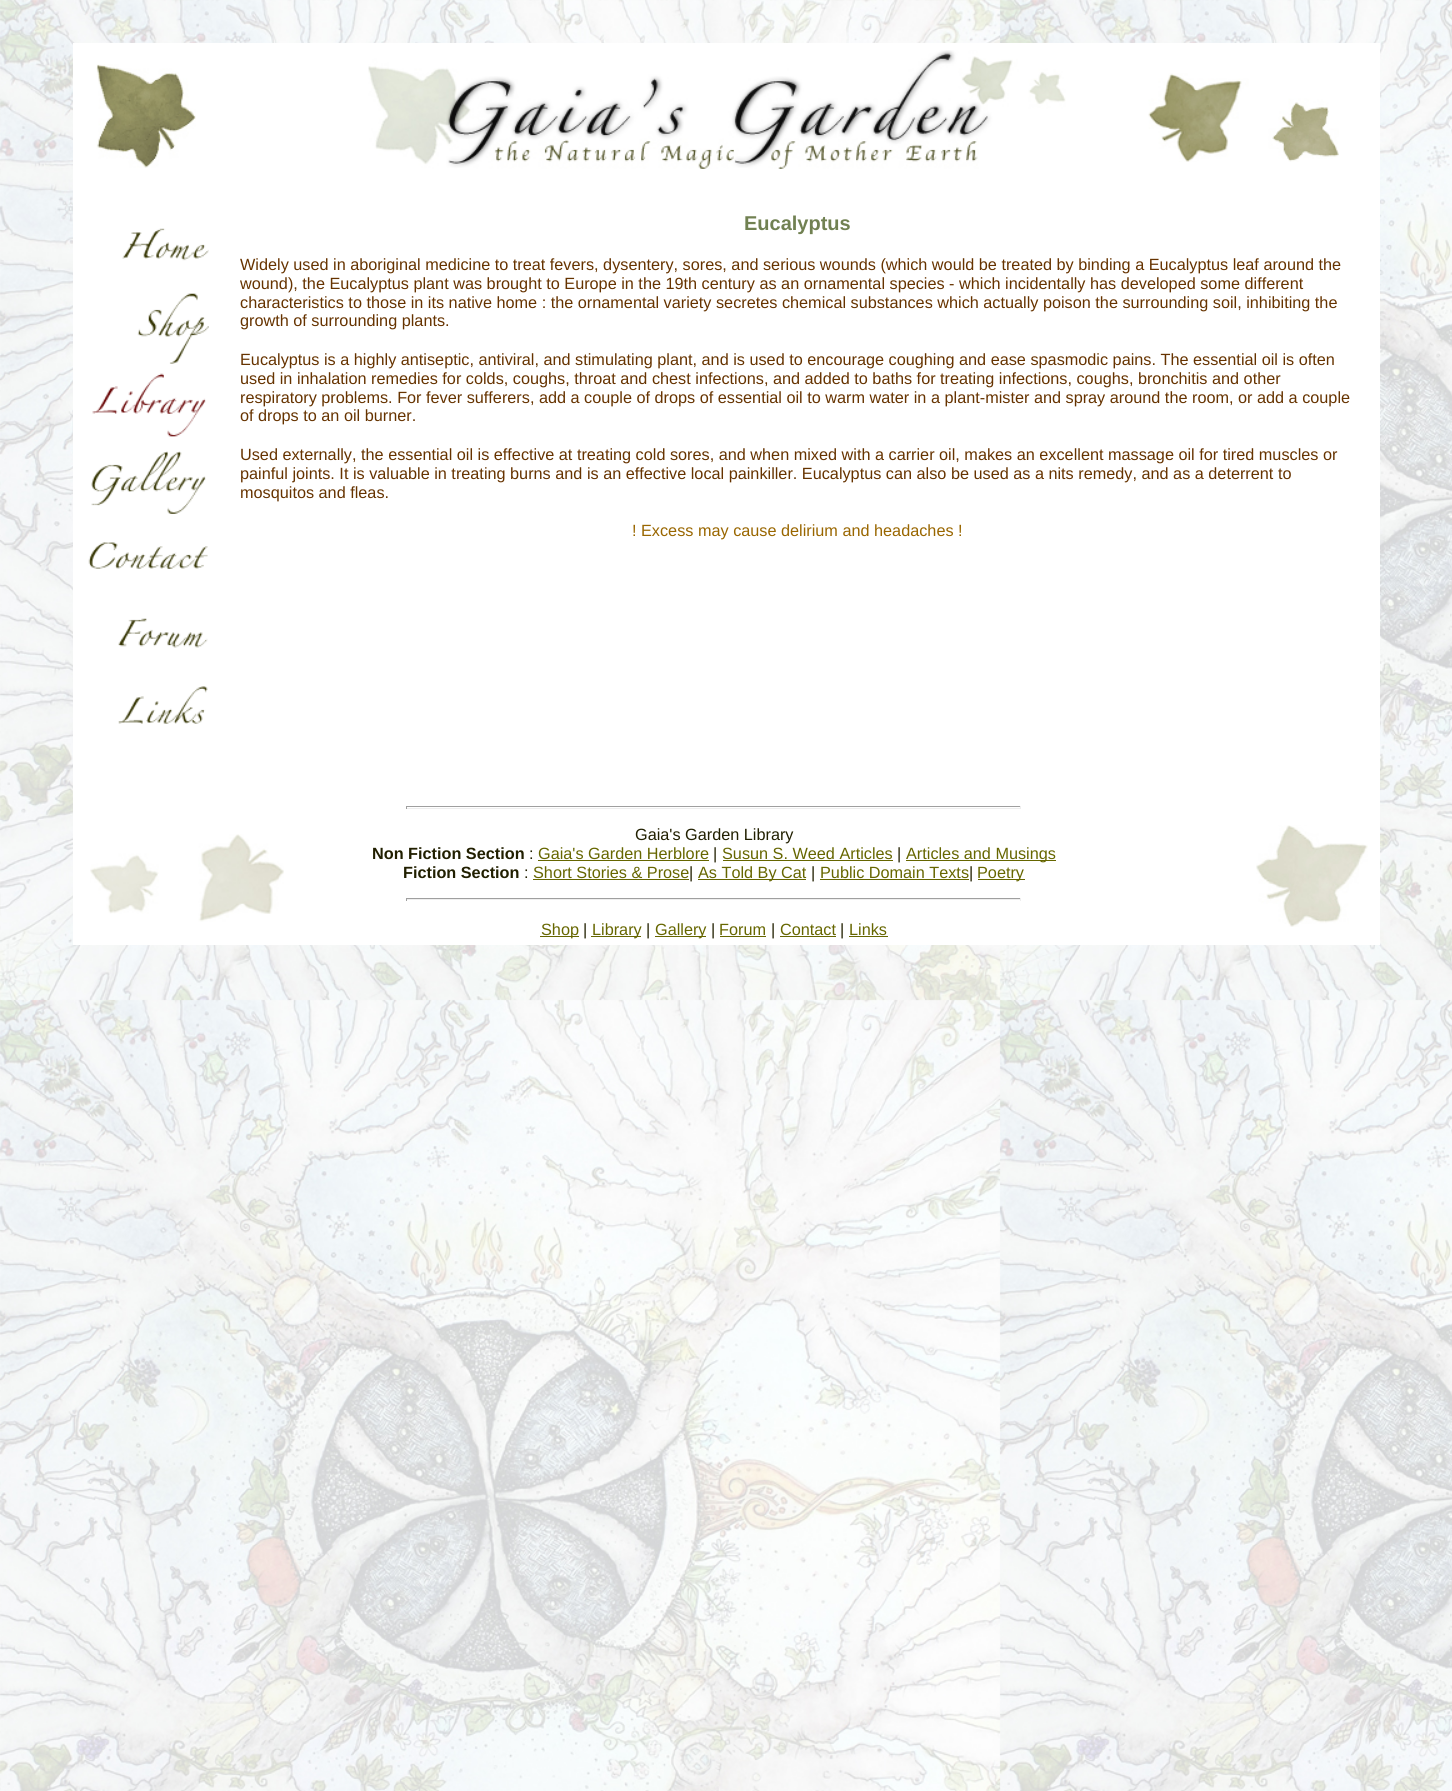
import math
import cairo

surface = cairo.ImageSurface(cairo.Format.RGB24, 1452, 1791)
ctx = cairo.Context(surface)
options = cairo.FontOptions()
options.set_hint_metrics(cairo.HintMetrics.OFF)
options.set_hint_style(cairo.HintStyle.NONE)
ctx.set_font_options(options)
ctx.set_miter_limit(4)


def ink(r, g, b):
    ctx.set_source_rgb(r / 255, g / 255, b / 255)


def write(x, y, s, family, size, color, bold=False, italic=False):
    ctx.select_font_face(family, cairo.FontSlant.ITALIC if italic else cairo.FontSlant.NORMAL, cairo.FontWeight.BOLD if bold else cairo.FontWeight.NORMAL)
    ctx.set_font_size(size)
    ink(*color)
    ctx.move_to(x, y)
    ctx.show_text(s)


def block(x, y, w, h, *color):
    ink(*color)
    ctx.rectangle(x, y, w, h)
    ctx.fill()


def paste(path, x, y, w, h):
    ctx.save()
    ctx.set_source_surface(cairo.ImageSurface.create_from_png(path), x, y)
    ctx.rectangle(x, y, w, h)
    ctx.fill()
    ctx.restore()


s1 = dict(family="Liberation Sans", size=20, color=(113, 129, 82), bold=True)
s2 = dict(family="Liberation Sans", size=16.25, color=(102, 51, 0))
s3 = dict(family="Liberation Sans", size=16.25, color=(153, 102, 0))
s4 = dict(family="Liberation Sans", size=16.25, color=(33, 31, 0))
s5 = dict(family="Liberation Sans", size=16.25, color=(33, 31, 0), bold=True)
s6 = dict(family="Liberation Sans", size=16.25, color=(102, 102, 0))

ink(255, 255, 255)
ctx.paint()
paste("pic1.png", 0, 0, 1452, 1791)
block(73, 43, 1307, 902, 255, 255, 255)
paste("pic2.png", 96, 64, 100, 104)
paste("pic3.png", 368, 50, 698, 119)
paste("pic4.png", 1148, 73, 191, 89)
paste("pic5.png", 122, 228, 87, 33)
paste("pic6.png", 137, 293, 72, 71)
paste("pic7.png", 92, 373, 114, 64)
paste("pic8.png", 91, 451, 115, 63)
paste("pic9.png", 88, 542, 120, 27)
paste("pic10.png", 118, 618, 90, 30)
paste("pic11.png", 118, 686, 90, 38)
write(744, 230, "Eucalyptus", **s1)
write(240, 270, "Widely used in aboriginal medicine to treat fevers, dysentery, sores, and serious wounds (which would be treated by binding a Eucalyptus leaf around the", **s2)
write(240, 289, "wound), the Eucalyptus plant was brought to Europe in the 19th century as an ornamental species - which incidentally has developed some different", **s2)
write(240, 308, "characteristics to those in its native home : the ornamental variety secretes chemical substances which actually poison the surrounding soil, inhibiting the", **s2)
write(240, 326, "growth of surrounding plants.", **s2)
write(240, 365, "Eucalyptus is a highly antiseptic, antiviral, and stimulating plant, and is used to encourage coughing and ease spasmodic pains. The essential oil is often", **s2)
write(240, 384, "used in inhalation remedies for colds, coughs, throat and chest infections, and added to baths for treating infections, coughs, bronchitis and other", **s2)
write(240, 403, "respiratory problems. For fever sufferers, add a couple of drops of essential oil to warm water in a plant-mister and spray around the room, or add a couple", **s2)
write(240, 421, "of drops to an oil burner.", **s2)
write(240, 460, "Used externally, the essential oil is effective at treating cold sores, and when mixed with a carrier oil, makes an excellent massage oil for tired muscles or", **s2)
write(240, 479, "painful joints. It is valuable in treating burns and is an effective local painkiller. Eucalyptus can also be used as a nits remedy, and as a deterrent to", **s2)
write(240, 498, "mosquitos and fleas.", **s2)
write(632, 536, "! Excess may cause delirium and headaches !", **s3)
paste("pic12.png", 90, 834, 194, 88)
block(406, 806, 615, 1, 159, 159, 159)
block(1020, 806, 1, 3, 238, 238, 238)
block(406, 808, 615, 1, 238, 238, 238)
block(406, 806, 1, 3, 159, 159, 159)
write(635, 840, "Gaia's Garden Library", **s4)
write(372, 859, "Non Fiction Section", **s5)
write(529, 859, ":", **s4)
write(538, 859, "Gaia's Garden Herblore", **s6)
block(538, 860, 171, 1, 102, 102, 0)
write(713, 859, "|", **s4)
write(722, 859, "Susun S. Weed Articles", **s6)
block(723, 860, 170, 1, 102, 102, 0)
write(897, 859, "|", **s4)
block(906, 860, 150, 1, 102, 102, 0)
write(906, 859, "Articles and Musings", **s6)
write(403, 878, "Fiction Section", **s5)
write(524, 878, ":", **s4)
write(533, 878, "Short Stories & Prose", **s6)
block(533, 879, 156, 1, 102, 102, 0)
write(689, 878, "|", **s4)
block(698, 879, 108, 1, 102, 102, 0)
write(698, 878, "As Told By Cat", **s6)
write(811, 878, "|", **s4)
write(820, 878, "Public Domain Texts", **s6)
block(820, 879, 149, 1, 102, 102, 0)
write(969, 878, "|", **s4)
block(978, 879, 47, 1, 102, 102, 0)
write(977, 878, "Poetry", **s6)
block(406, 898, 615, 1, 159, 159, 159)
block(1020, 898, 1, 3, 238, 238, 238)
block(406, 899, 615, 1, 238, 238, 238)
block(406, 898, 1, 3, 159, 159, 159)
block(540, 936, 39, 1, 102, 102, 0)
write(541, 935, "Shop", **s6)
write(583, 935, "|", **s4)
block(591, 936, 50, 1, 102, 102, 0)
write(592, 935, "Library", **s6)
write(646, 935, "|", **s4)
block(655, 936, 51, 1, 102, 102, 0)
write(655, 935, "Gallery", **s6)
write(711, 935, "|", **s4)
write(719, 935, "Forum", **s6)
block(720, 936, 46, 1, 102, 102, 0)
write(771, 935, "|", **s4)
write(780, 935, "Contact", **s6)
block(780, 936, 56, 1, 102, 102, 0)
write(840, 935, "|", **s4)
write(849, 935, "Links", **s6)
block(849, 936, 39, 1, 102, 102, 0)
paste("pic13.png", 1256, 825, 112, 102)
surface.write_to_png("screenshot.png")
